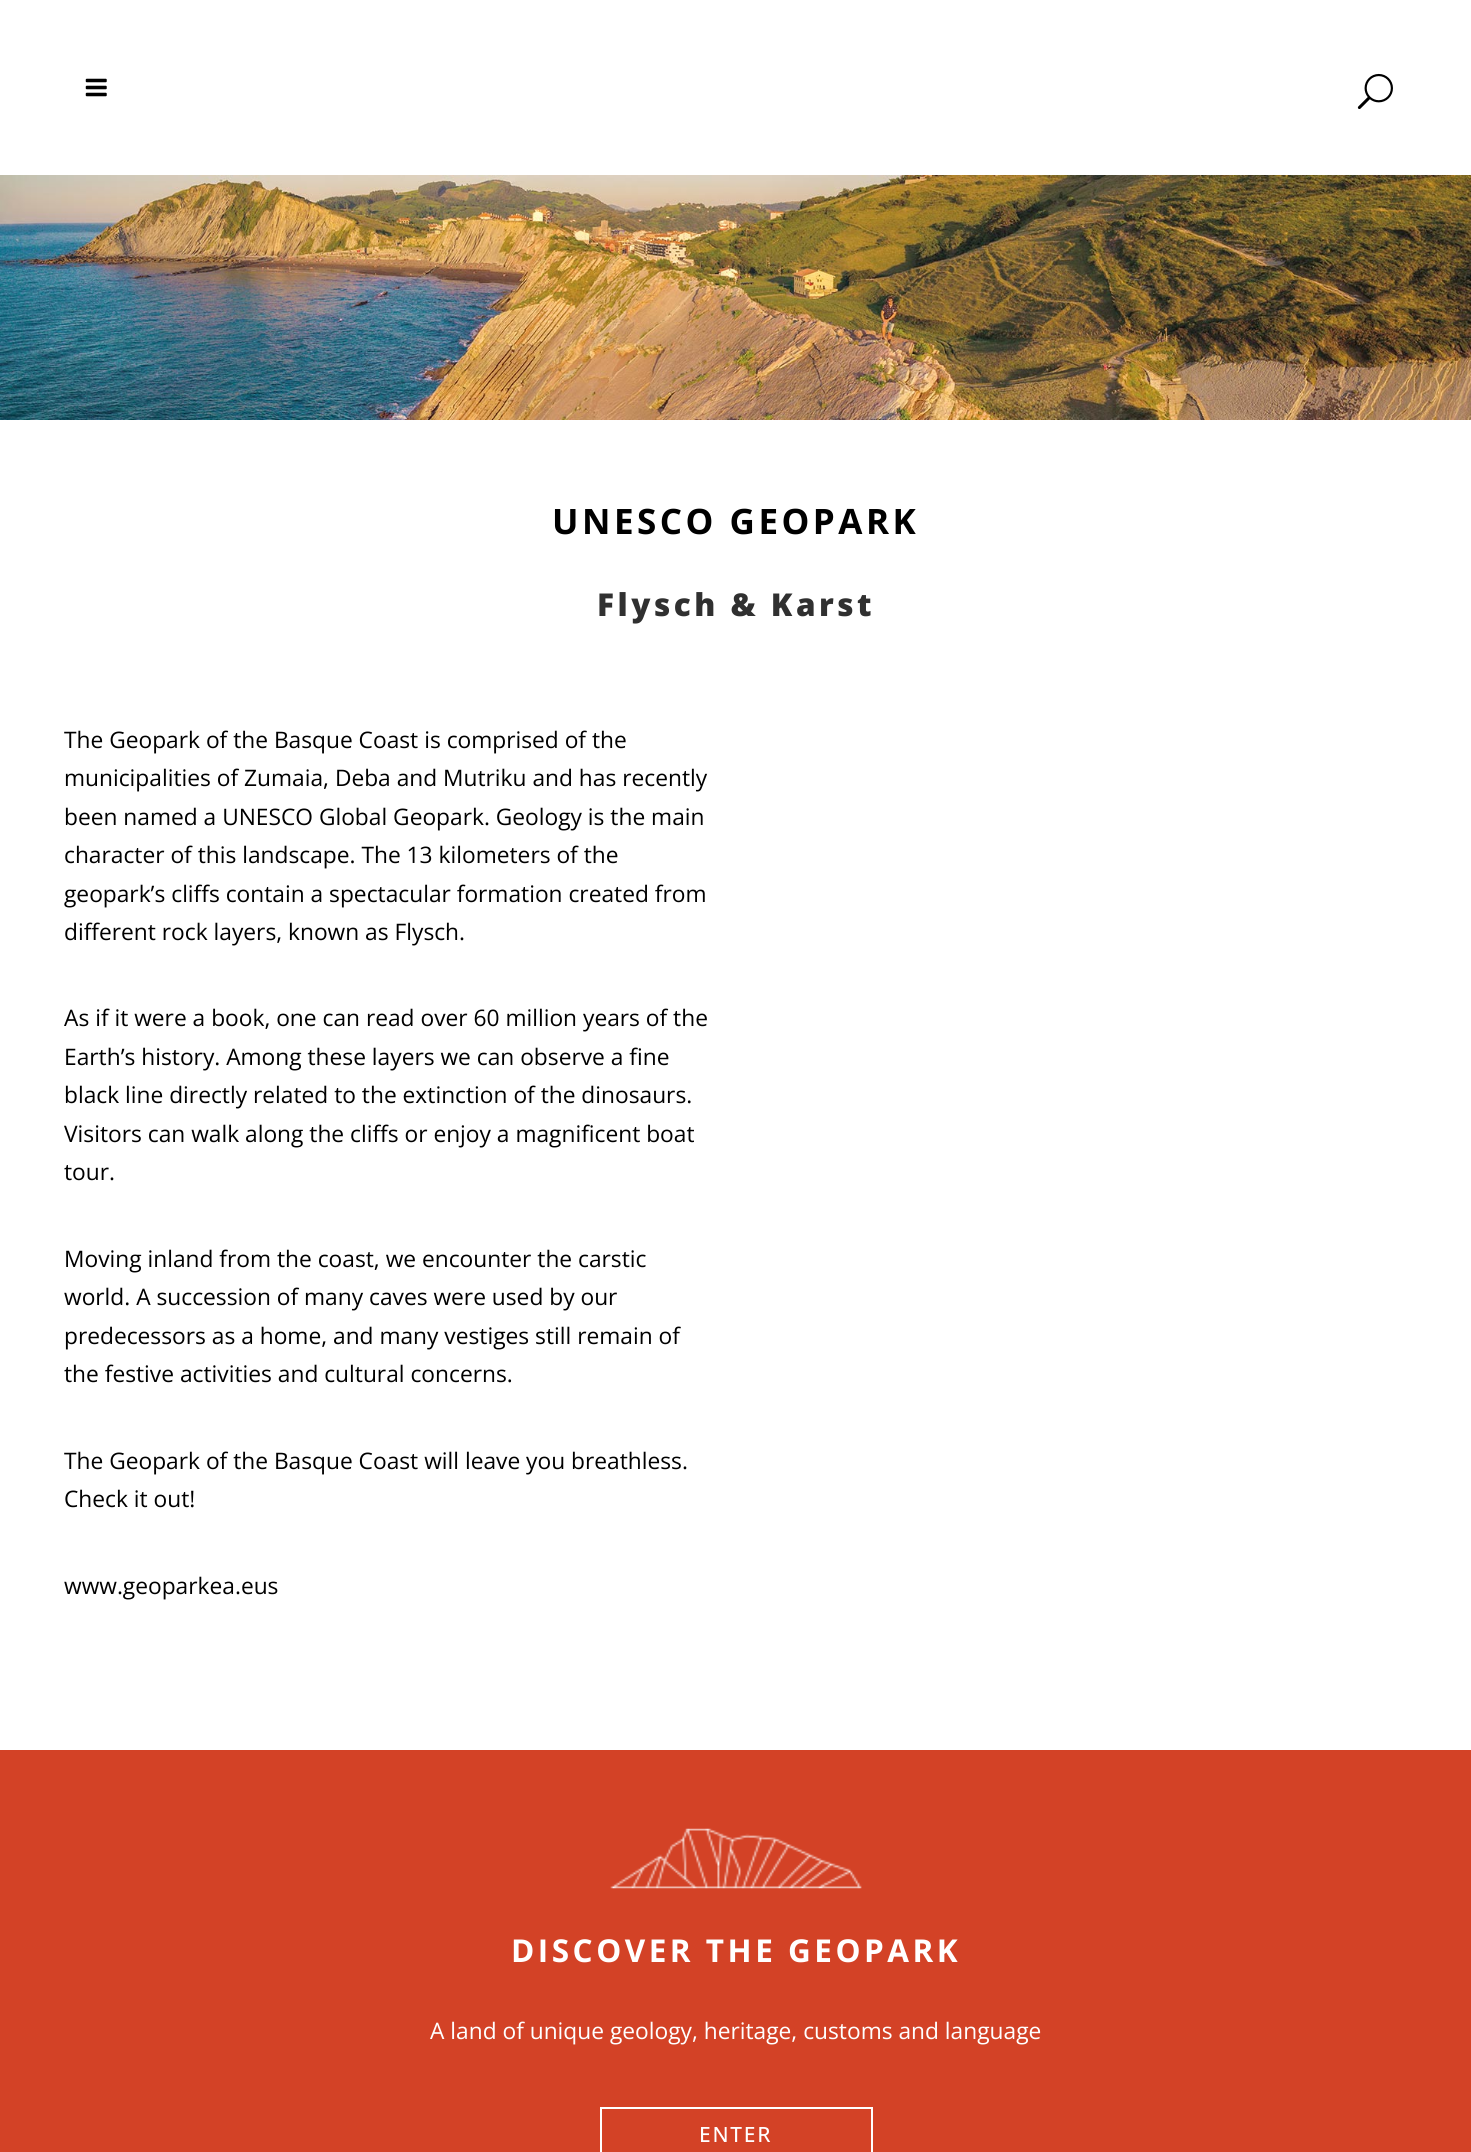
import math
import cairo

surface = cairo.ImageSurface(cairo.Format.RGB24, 1471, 2152)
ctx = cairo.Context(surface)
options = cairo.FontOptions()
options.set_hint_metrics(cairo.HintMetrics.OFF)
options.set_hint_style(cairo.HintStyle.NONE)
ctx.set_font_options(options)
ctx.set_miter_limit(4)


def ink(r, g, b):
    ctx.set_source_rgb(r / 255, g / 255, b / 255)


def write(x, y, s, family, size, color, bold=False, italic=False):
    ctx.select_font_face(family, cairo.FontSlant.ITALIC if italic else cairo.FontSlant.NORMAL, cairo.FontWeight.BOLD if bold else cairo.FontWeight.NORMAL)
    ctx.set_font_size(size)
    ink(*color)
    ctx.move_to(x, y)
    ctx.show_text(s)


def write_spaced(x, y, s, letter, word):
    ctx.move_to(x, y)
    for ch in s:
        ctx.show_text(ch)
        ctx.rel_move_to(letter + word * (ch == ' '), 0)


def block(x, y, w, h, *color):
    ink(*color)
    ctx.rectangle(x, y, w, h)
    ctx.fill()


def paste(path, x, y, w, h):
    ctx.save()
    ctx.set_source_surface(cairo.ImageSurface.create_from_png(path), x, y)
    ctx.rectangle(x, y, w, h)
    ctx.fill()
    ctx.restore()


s1 = dict(family="Open Sans", size=22.75, color=(0, 0, 0))
s2 = dict(family="Open Sans", size=22.75, color=(255, 255, 255))

ink(255, 255, 255)
ctx.paint()
paste("pic1.png", 85, 78, 22, 19)
paste("pic2.png", 1357, 73, 36, 36)
paste("pic3.png", 0, 175, 1471, 245)
ctx.select_font_face("Open Sans", cairo.FontSlant.NORMAL, cairo.FontWeight.BOLD)
ctx.set_font_size(35)
ink(0, 0, 0)
write_spaced(552, 534, "UNESCO GEOPARK", 3.5, 0)
ctx.select_font_face("Open Sans ExtraBold")
ctx.set_font_size(31.5)
ink(48, 48, 48)
write_spaced(597, 616, "Flysch & Karst", 3.5, 0)
write(64, 748, "The Geopark of the Basque Coast is comprised of the", **s1)
write(64, 786, "municipalities of Zumaia, Deba and Mutriku and has recently", **s1)
write(64, 825, "been named a UNESCO Global Geopark. Geology is the main", **s1)
write(64, 863, "character of this landscape. The 13 kilometers of the", **s1)
write(64, 902, "geopark’s cliffs contain a spectacular formation created from", **s1)
write(64, 940, "different rock layers, known as Flysch.", **s1)
write(64, 1026, "As if it were a book, one can read over 60 million years of the", **s1)
write(64, 1065, "Earth’s history. Among these layers we can observe a fine", **s1)
write(64, 1103, "black line directly related to the extinction of the dinosaurs.", **s1)
write(64, 1142, "Visitors can walk along the cliffs or enjoy a magnificent boat", **s1)
write(64, 1180, "tour.", **s1)
write(64, 1267, "Moving inland from the coast, we encounter the carstic", **s1)
write(64, 1305, "world. A succession of many caves were used by our", **s1)
write(64, 1344, "predecessors as a home, and many vestiges still remain of", **s1)
write(64, 1382, "the festive activities and cultural concerns.", **s1)
write(64, 1469, "The Geopark of the Basque Coast will leave you breathless.", **s1)
write(64, 1507, "Check it out!", **s1)
write(64, 1594, "www.geoparkea.eus", **s1)
block(0, 1750, 1471, 402, 211, 66, 38)
paste("pic4.png", 610, 1828, 252, 61)
ctx.select_font_face("Open Sans", cairo.FontSlant.NORMAL, cairo.FontWeight.BOLD)
ctx.set_font_size(31.5)
ink(255, 255, 255)
write_spaced(511, 1962, "DISCOVER THE GEOPARK", 3.5, 0)
write(430, 2039, "A land of unique geology, heritage, customs and language", **s2)
ctx.rectangle(601, 2108, 271, 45)
ctx.stroke()
ctx.select_font_face("Open Sans Medium")
ctx.set_font_size(21)
write_spaced(699, 2142, "ENTER", 1.75, 0)
surface.write_to_png("screenshot.png")
